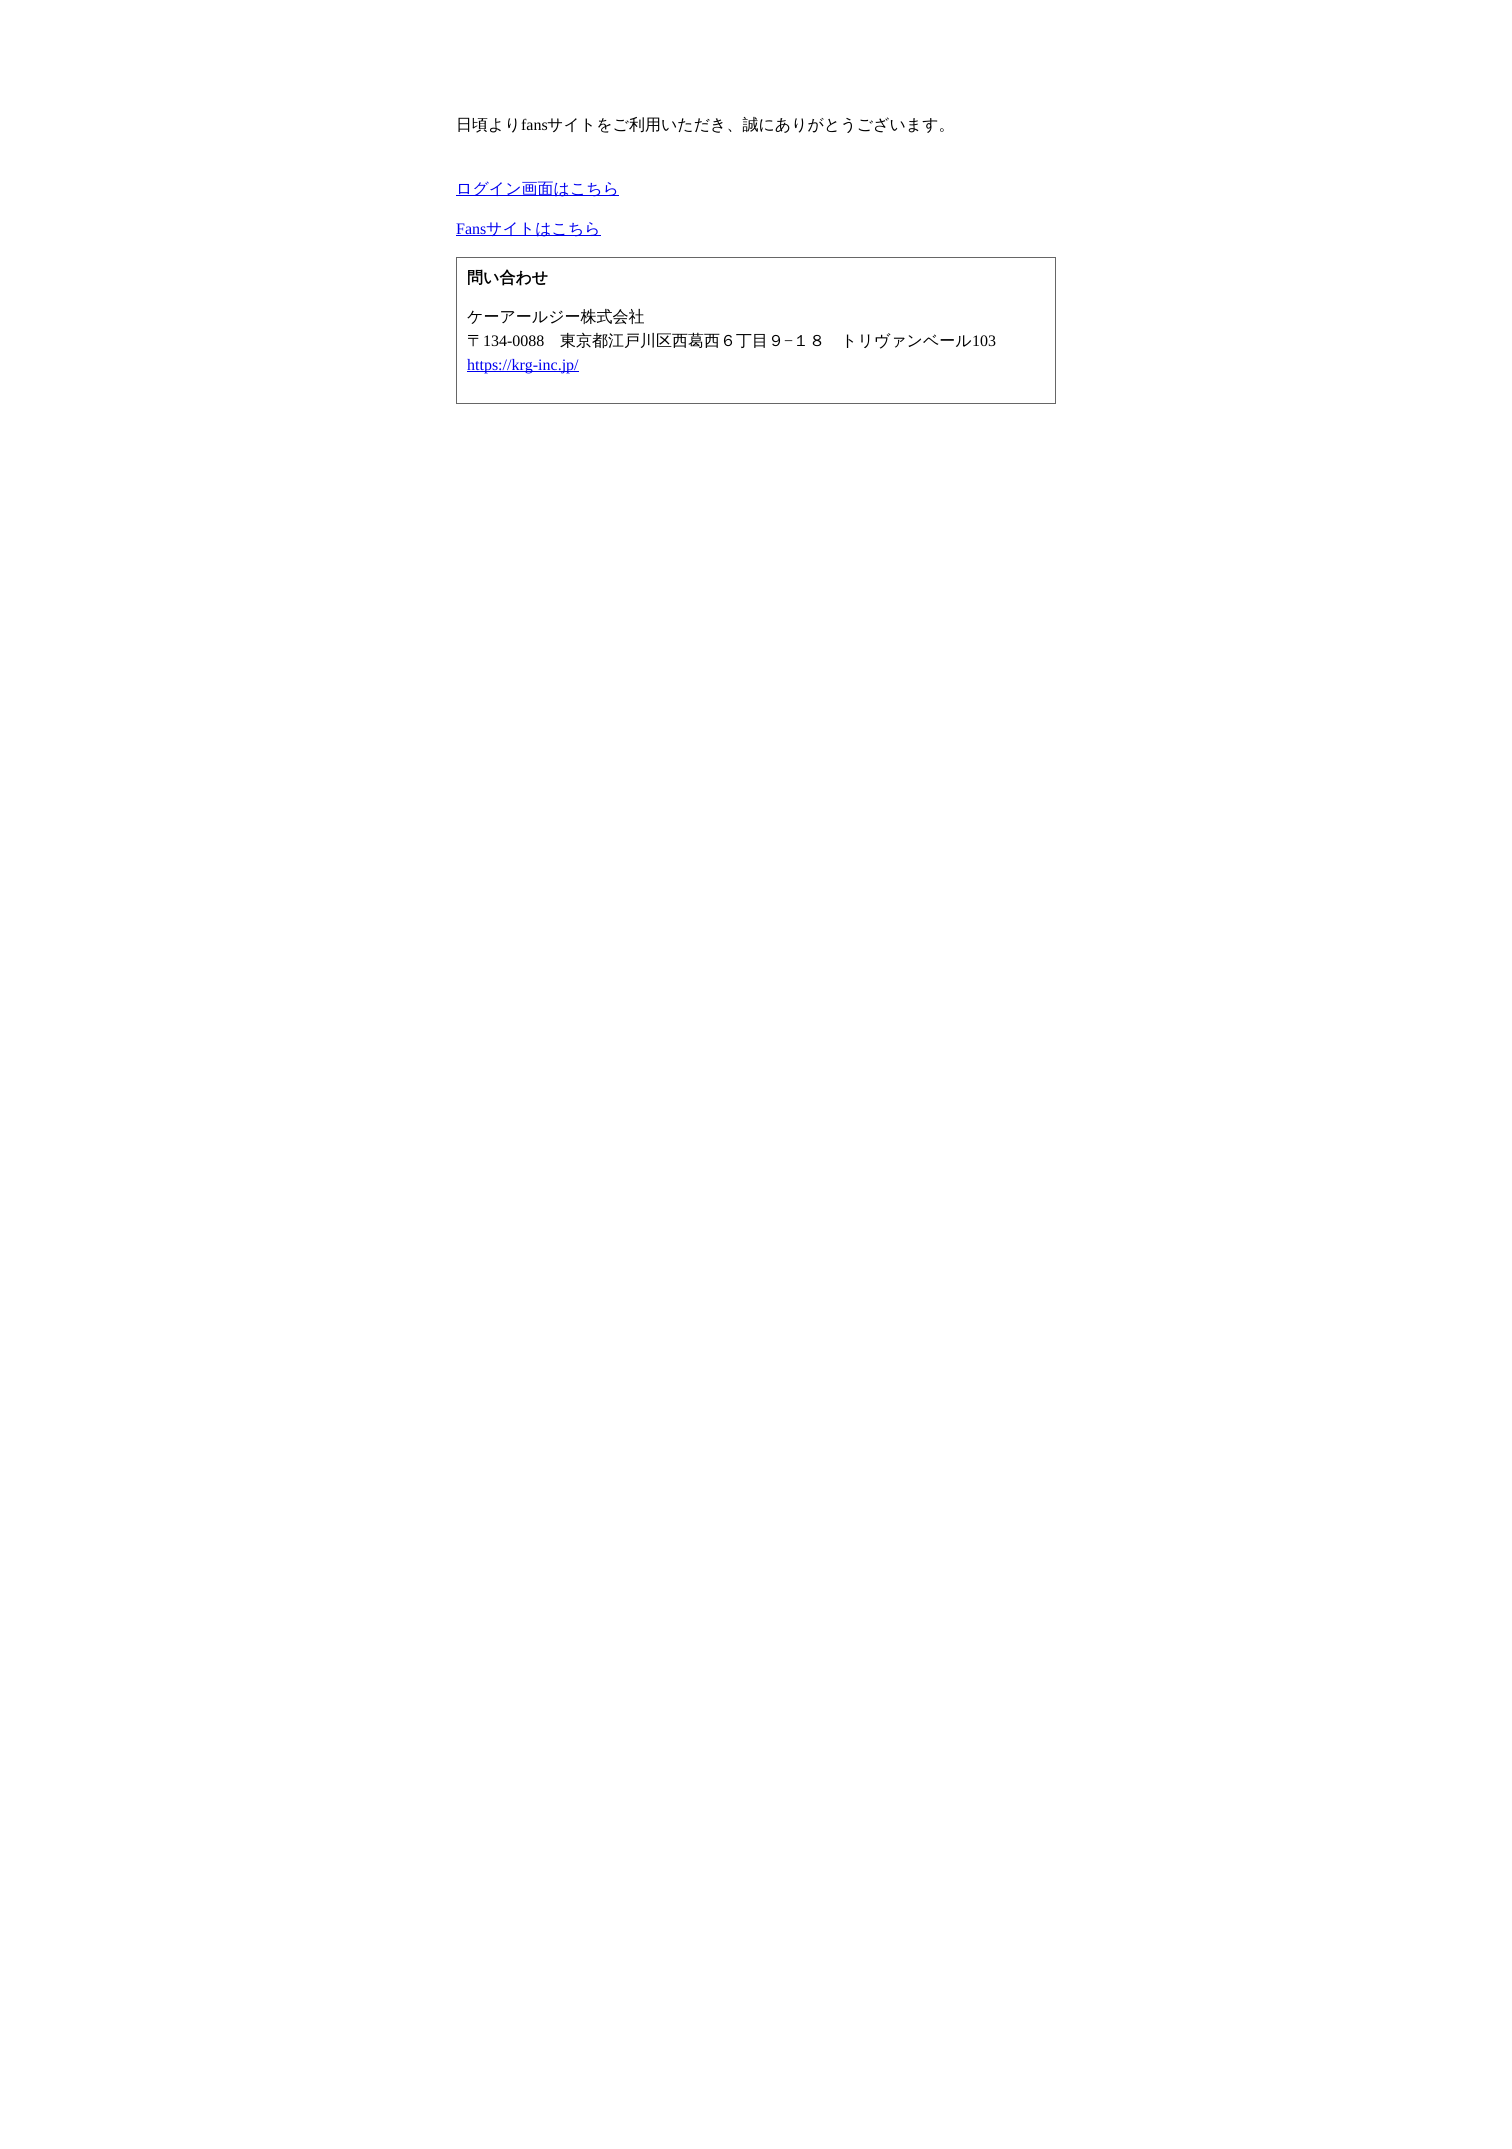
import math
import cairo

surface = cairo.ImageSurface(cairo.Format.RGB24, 1512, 2149)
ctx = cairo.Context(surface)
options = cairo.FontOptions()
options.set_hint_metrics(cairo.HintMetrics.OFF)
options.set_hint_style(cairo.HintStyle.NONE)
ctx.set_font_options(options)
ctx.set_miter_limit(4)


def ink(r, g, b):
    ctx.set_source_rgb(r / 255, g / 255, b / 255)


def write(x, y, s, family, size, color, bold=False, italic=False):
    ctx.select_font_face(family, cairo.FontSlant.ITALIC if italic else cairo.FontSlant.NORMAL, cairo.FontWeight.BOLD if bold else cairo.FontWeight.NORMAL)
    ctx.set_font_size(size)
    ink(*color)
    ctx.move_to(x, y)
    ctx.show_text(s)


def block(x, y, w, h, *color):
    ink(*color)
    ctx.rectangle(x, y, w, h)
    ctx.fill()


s1 = dict(family="WenQuanYi Zen Hei Medium", size=16, color=(0, 0, 0))
s2 = dict(family="Liberation Serif", size=16, color=(0, 0, 0))
s3 = dict(family="WenQuanYi Zen Hei Medium", size=16, color=(0, 0, 238))
s4 = dict(family="Liberation Serif", size=16, color=(0, 0, 238))
s5 = dict(family="WenQuanYi Zen Hei", size=16, color=(0, 0, 0), bold=True)

ink(255, 255, 255)
ctx.paint()
write(456, 130, "日頃より", **s1)
write(521, 130, "fans", **s2)
write(547, 130, "サイトをご利用いただき、誠にありがとうございます。", **s1)
block(456, 195, 163, 1, 0, 0, 238)
write(456, 194, "ログイン画面はこちら", **s3)
write(456, 234, "Fans", **s4)
block(456, 235, 145, 1, 0, 0, 238)
write(486, 234, "サイトはこちら", **s3)
ctx.rectangle(456.5, 257.5, 599, 146)
ink(102, 102, 102)
ctx.set_line_width(1)
ctx.stroke()
write(467, 283, "問い合わせ", **s5)
write(467, 322, "ケーアールジー株式会社", **s1)
write(467, 346, "〒", **s1)
write(483, 346, "134-0088", **s2)
write(560, 346, "東京都江戸川区西葛西６丁目９", **s1)
write(784, 346, "−", **s2)
write(793, 346, "１８　トリヴァンベール", **s1)
write(972, 346, "103", **s2)
block(467, 371, 112, 1, 0, 0, 238)
write(467, 370, "https://krg-inc.jp/", **s4)
surface.write_to_png("screenshot.png")
